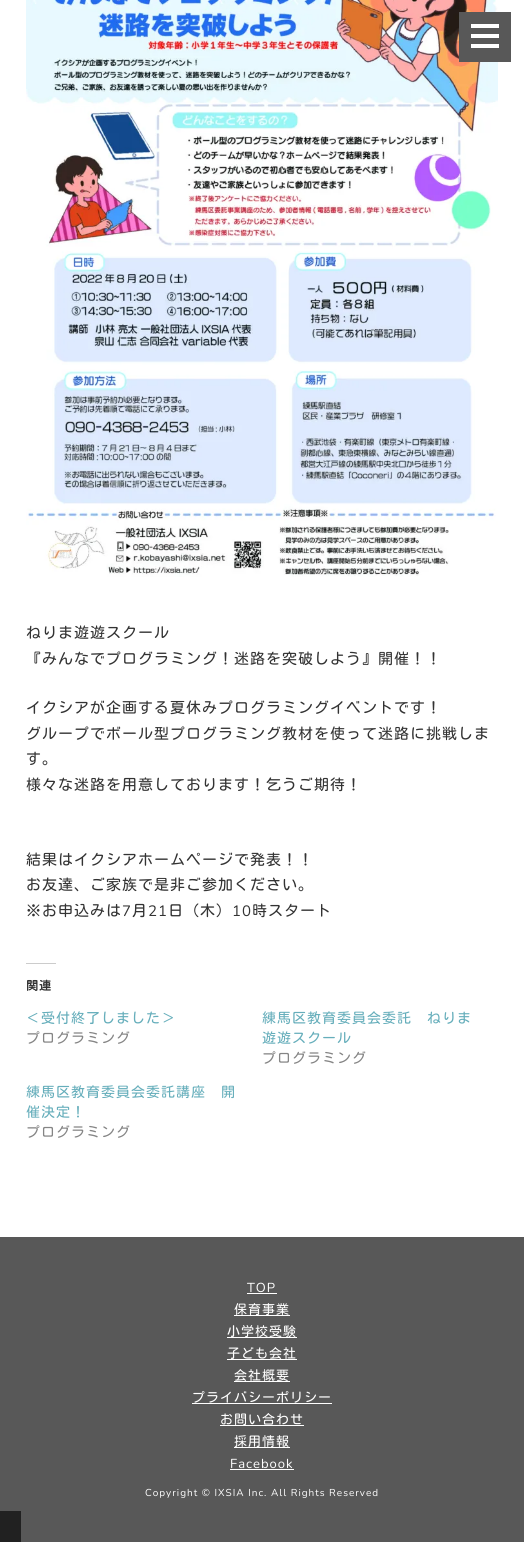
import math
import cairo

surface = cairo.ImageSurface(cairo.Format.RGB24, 524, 1542)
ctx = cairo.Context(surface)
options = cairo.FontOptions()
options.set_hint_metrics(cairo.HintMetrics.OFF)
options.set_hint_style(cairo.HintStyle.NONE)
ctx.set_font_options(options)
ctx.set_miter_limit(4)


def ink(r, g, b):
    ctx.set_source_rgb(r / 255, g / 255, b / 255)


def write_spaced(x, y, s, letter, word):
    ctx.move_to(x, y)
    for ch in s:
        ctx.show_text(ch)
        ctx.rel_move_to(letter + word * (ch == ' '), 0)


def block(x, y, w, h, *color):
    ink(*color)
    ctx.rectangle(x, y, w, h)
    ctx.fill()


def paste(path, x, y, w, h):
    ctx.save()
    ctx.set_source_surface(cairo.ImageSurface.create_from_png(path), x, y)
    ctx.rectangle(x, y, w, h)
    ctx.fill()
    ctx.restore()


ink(255, 255, 255)
ctx.paint()
paste("pic1.png", 26, 0, 472, 577)
block(459, 12, 52, 50, 88, 88, 88)
block(471, 24, 28, 4, 255, 255, 255)
block(471, 34, 28, 4, 255, 255, 255)
block(471, 44, 28, 4, 255, 255, 255)
block(0, 1237, 524, 305, 88, 88, 88)
block(0, 1511, 21, 31, 33, 33, 33)
ctx.select_font_face("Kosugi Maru")
ctx.set_font_size(15)
ink(51, 51, 51)
write_spaced(26, 638, "ねりま遊遊スクール", 1, 0)
write_spaced(26, 664, "『みんなでプログラミング！迷路を突破しよう』開催！！", 1, 0)
write_spaced(26, 713, "イクシアが企画する夏休みプログラミングイベントです！", 1, 0)
write_spaced(26, 739, "グループでボール型プログラミング教材を使って迷路に挑戦しま", 1, 0)
write_spaced(26, 764, "す。", 1, 0)
write_spaced(26, 790, "様々な迷路を用意しております！乞うご期待！", 1, 0)
write_spaced(26, 865, "結果はイクシアホームページで発表！！", 1, 0)
write_spaced(26, 890, "お友達、ご家族で是非ご参加ください。", 1, 0)
write_spaced(26, 916, "※お申込みは", 1, 0)
ctx.select_font_face("Nunito")
write_spaced(122, 916, "7", 1, 0)
ctx.select_font_face("Kosugi Maru")
write_spaced(132, 916, "月", 1, 0)
ctx.select_font_face("Nunito")
write_spaced(148, 916, "21", 1, 0)
ctx.select_font_face("Kosugi Maru")
write_spaced(168, 916, "日（木）", 1, 0)
ctx.select_font_face("Nunito")
write_spaced(232, 916, "10", 1, 0)
ctx.select_font_face("Kosugi Maru")
write_spaced(252, 916, "時スタート", 1, 0)
block(26, 963, 30, 1, 204, 204, 204)
ctx.select_font_face("Kosugi Maru", cairo.FontSlant.NORMAL, cairo.FontWeight.BOLD)
ctx.set_font_size(12)
ink(51, 51, 51)
write_spaced(26, 990, "関連", 1, 0)
ctx.select_font_face("Kosugi Maru")
ctx.set_font_size(14)
ink(102, 174, 187)
write_spaced(26, 1023, "＜受付終了しました＞", 1, 0)
ink(133, 133, 133)
write_spaced(26, 1043, "プログラミング", 1, 0)
ink(102, 174, 187)
write_spaced(262, 1023, "練馬区教育委員会委託　ねりま", 1, 0)
write_spaced(262, 1043, "遊遊スクール", 1, 0)
ink(133, 133, 133)
write_spaced(262, 1063, "プログラミング", 1, 0)
ink(102, 174, 187)
write_spaced(26, 1097, "練馬区教育委員会委託講座　開", 1, 0)
write_spaced(26, 1117, "催決定！", 1, 0)
ink(133, 133, 133)
write_spaced(26, 1137, "プログラミング", 1, 0)
ctx.select_font_face("Nunito")
ctx.set_font_size(13)
ink(255, 255, 255)
write_spaced(247, 1292, "TOP", 1, 0)
block(247, 1293, 30, 1, 255, 255, 255)
block(234, 1315, 56, 1, 255, 255, 255)
ctx.select_font_face("Kosugi Maru")
write_spaced(234, 1314, "保育事業", 1, 0)
block(227, 1337, 70, 1, 255, 255, 255)
write_spaced(227, 1336, "小学校受験", 1, 0)
block(227, 1359, 70, 1, 255, 255, 255)
write_spaced(227, 1358, "子ども会社", 1, 0)
block(234, 1381, 56, 1, 255, 255, 255)
write_spaced(234, 1380, "会社概要", 1, 0)
write_spaced(192, 1402, "プライバシーポリシー", 1, 0)
block(192, 1403, 140, 1, 255, 255, 255)
block(220, 1425, 84, 1, 255, 255, 255)
write_spaced(220, 1424, "お問い合わせ", 1, 0)
block(234, 1447, 56, 1, 255, 255, 255)
write_spaced(234, 1446, "採用情報", 1, 0)
ctx.select_font_face("Nunito")
write_spaced(230, 1468, "Facebook", 1, 0)
block(230, 1469, 64, 1, 255, 255, 255)
ctx.set_font_size(10)
write_spaced(145, 1496, "Copyright © IXSIA Inc. All Rights Reserved", 1, 0)
surface.write_to_png("screenshot.png")
